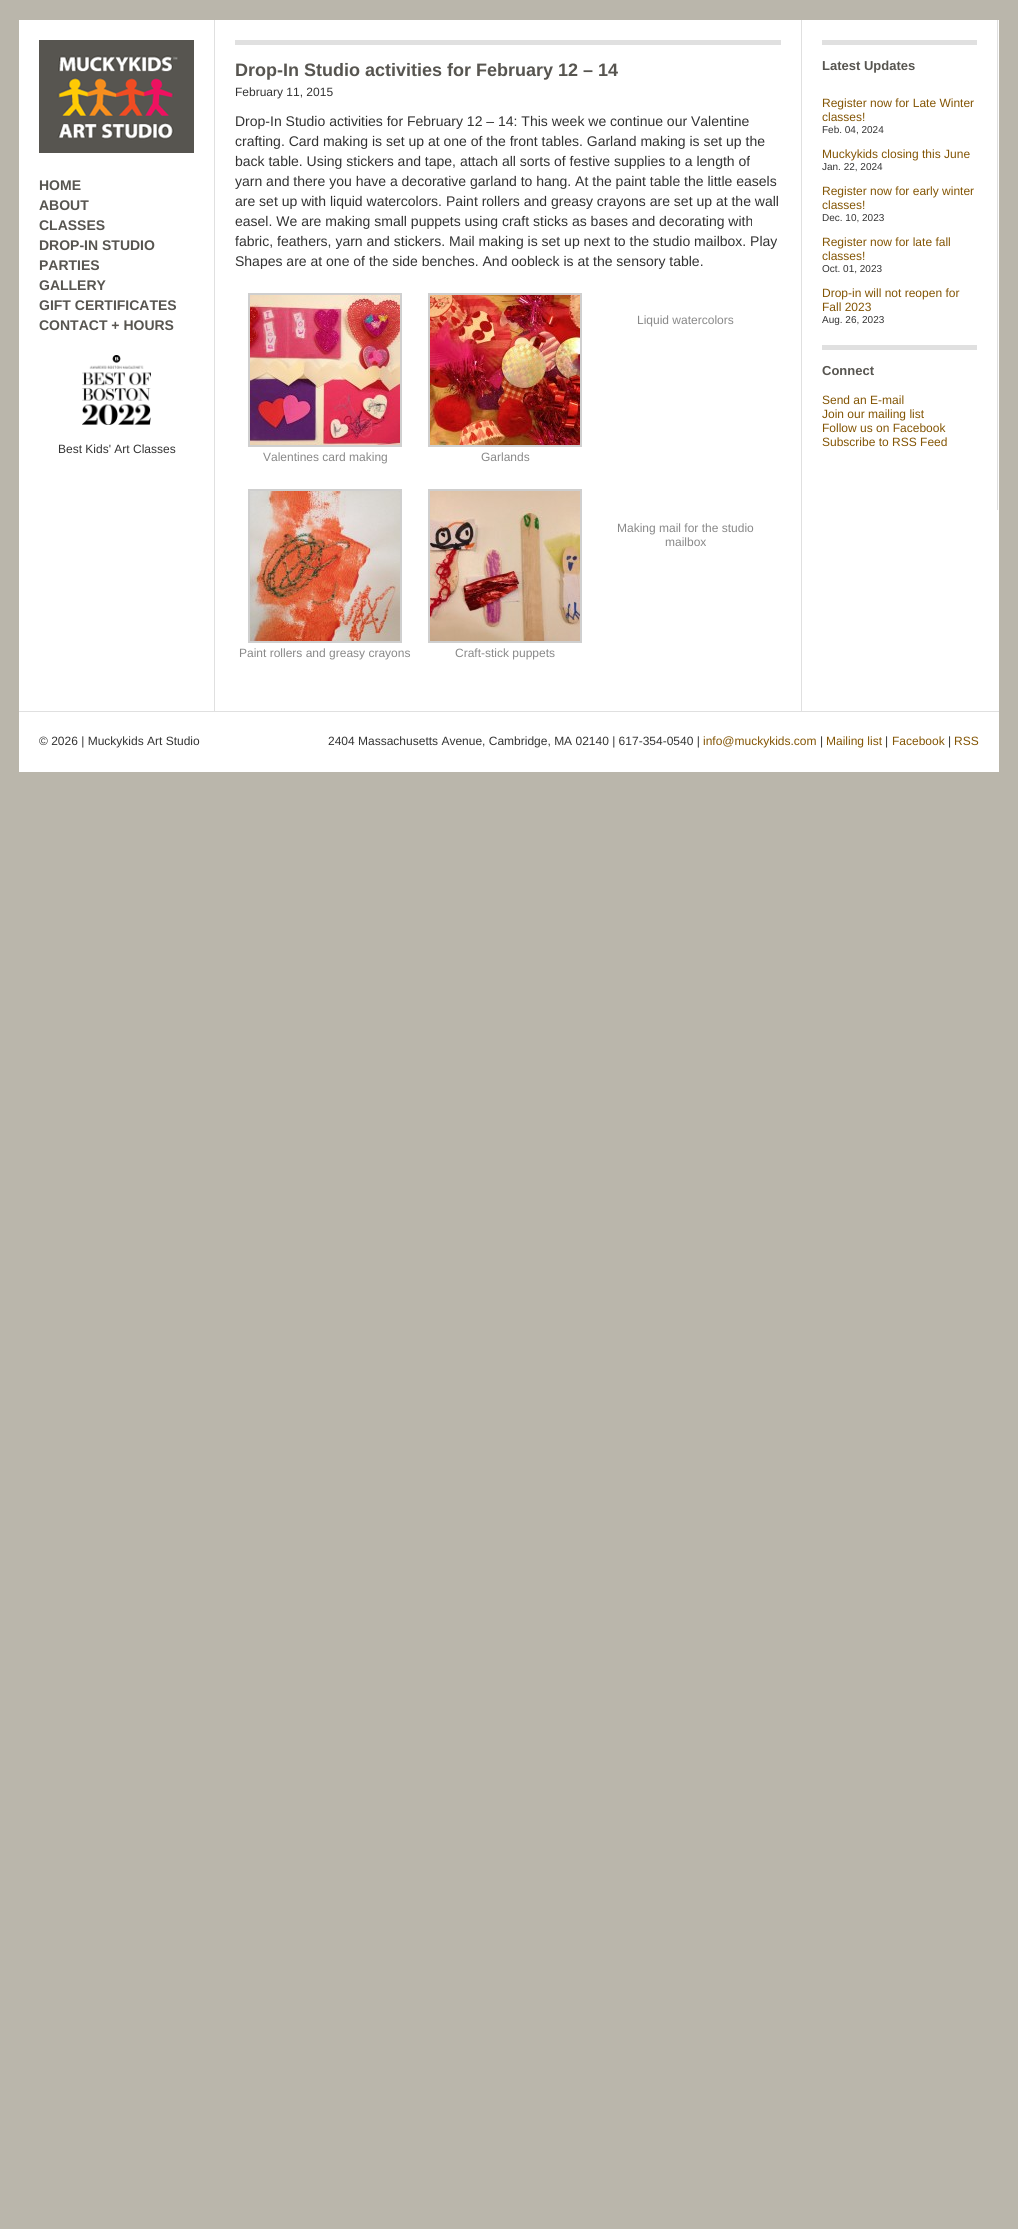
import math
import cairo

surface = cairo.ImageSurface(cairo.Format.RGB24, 1018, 2229)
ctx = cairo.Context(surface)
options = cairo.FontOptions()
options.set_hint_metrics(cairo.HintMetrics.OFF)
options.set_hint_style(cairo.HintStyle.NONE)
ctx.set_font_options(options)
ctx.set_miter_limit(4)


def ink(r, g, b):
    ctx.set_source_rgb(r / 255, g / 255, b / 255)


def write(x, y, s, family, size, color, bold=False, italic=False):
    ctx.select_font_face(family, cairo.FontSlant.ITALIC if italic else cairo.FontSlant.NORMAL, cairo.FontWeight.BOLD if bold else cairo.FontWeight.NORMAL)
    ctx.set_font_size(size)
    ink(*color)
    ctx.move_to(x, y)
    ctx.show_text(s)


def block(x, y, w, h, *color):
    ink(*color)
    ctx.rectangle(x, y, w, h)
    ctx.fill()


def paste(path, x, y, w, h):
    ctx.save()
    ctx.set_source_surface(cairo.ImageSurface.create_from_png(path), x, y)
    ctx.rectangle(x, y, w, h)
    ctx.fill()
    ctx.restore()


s1 = dict(family="Liberation Sans", size=14, color=(87, 85, 80), bold=True)
s2 = dict(family="Liberation Sans", size=12, color=(51, 51, 51))
s3 = dict(family="Liberation Sans", size=18, color=(87, 85, 80), bold=True)
s4 = dict(family="Liberation Sans", size=14, color=(51, 51, 51))
s5 = dict(family="Liberation Sans", size=12, color=(136, 136, 136))
s6 = dict(family="Liberation Sans", size=13, color=(87, 85, 80), bold=True)
s7 = dict(family="Liberation Sans", size=12, color=(131, 85, 4))
s8 = dict(family="Liberation Sans", size=10, color=(51, 51, 51))

ink(186, 182, 171)
ctx.paint()
block(19, 20, 980, 752, 255, 255, 255)
paste("pic1.png", 39, 40, 155, 113)
write(39, 190, "HOME", **s1)
write(39, 210, "ABOUT", **s1)
write(39, 230, "CLASSES", **s1)
write(39, 250, "DROP-IN STUDIO", **s1)
write(39, 270, "PARTIES", **s1)
write(39, 290, "GALLERY", **s1)
write(39, 310, "GIFT CERTIFICATES", **s1)
write(39, 330, "CONTACT + HOURS", **s1)
paste("pic2.png", 82, 355, 69, 70)
write(58, 453, "Best Kids' Art Classes", **s2)
block(801, 20, 1, 692, 224, 224, 224)
block(214, 20, 1, 692, 224, 224, 224)
block(235, 40, 546, 5, 224, 224, 224)
write(235, 76, "Drop-In Studio activities for February 12 – 14", **s3)
write(235, 96, "February 11, 2015", **s2)
write(235, 126, "Drop-In Studio activities for February 12 – 14: This week we continue our Valentine", **s4)
write(235, 146, "crafting. Card making is set up at one of the front tables. Garland making is set up the", **s4)
write(235, 166, "back table. Using stickers and tape, attach all sorts of festive supplies to a length of", **s4)
write(235, 186, "yarn and there you have a decorative garland to hang. At the paint table the little easels", **s4)
write(235, 206, "are set up with liquid watercolors. Paint rollers and greasy crayons are set up at the wall", **s4)
write(235, 226, "easel. We are making small puppets using craft sticks as bases and decorating with", **s4)
write(235, 246, "fabric, feathers, yarn and stickers. Mail making is set up next to the studio mailbox. Play", **s4)
write(235, 266, "Shapes are at one of the side benches. And oobleck is at the sensory table.", **s4)
write(637, 324, "Liquid watercolors", **s5)
ctx.rectangle(249, 294, 152, 152)
ink(207, 207, 207)
ctx.stroke()
paste("pic3.png", 250, 295, 150, 150)
write(263, 461, "Valentines card making", **s5)
ctx.rectangle(429, 294, 152, 152)
ink(207, 207, 207)
ctx.stroke()
paste("pic4.png", 430, 295, 150, 150)
write(481, 461, "Garlands", **s5)
write(617, 532, "Making mail for the studio", **s5)
write(665, 546, "mailbox", **s5)
ctx.rectangle(249, 490, 152, 152)
ink(207, 207, 207)
ctx.stroke()
paste("pic5.png", 250, 491, 150, 150)
write(239, 657, "Paint rollers and greasy crayons", **s5)
ctx.rectangle(429, 490, 152, 152)
ink(207, 207, 207)
ctx.stroke()
paste("pic6.png", 430, 491, 150, 150)
write(455, 657, "Craft-stick puppets", **s5)
block(997, 20, 1, 490, 224, 224, 224)
block(822, 40, 155, 5, 224, 224, 224)
write(822, 70, "Latest Updates", **s6)
write(822, 107, "Register now for Late Winter", **s7)
write(822, 121, "classes!", **s7)
write(822, 133, "Feb. 04, 2024", **s8)
write(822, 158, "Muckykids closing this June", **s7)
write(822, 170, "Jan. 22, 2024", **s8)
write(822, 195, "Register now for early winter", **s7)
write(822, 209, "classes!", **s7)
write(822, 221, "Dec. 10, 2023", **s8)
write(822, 246, "Register now for late fall", **s7)
write(822, 260, "classes!", **s7)
write(822, 272, "Oct. 01, 2023", **s8)
write(822, 297, "Drop-in will not reopen for", **s7)
write(822, 311, "Fall 2023", **s7)
write(822, 323, "Aug. 26, 2023", **s8)
block(822, 345, 155, 5, 224, 224, 224)
write(822, 375, "Connect", **s6)
write(822, 404, "Send an E-mail", **s7)
write(822, 418, "Join our mailing list", **s7)
write(822, 432, "Follow us on Facebook", **s7)
write(822, 446, "Subscribe to RSS Feed", **s7)
block(19, 711, 980, 1, 224, 224, 224)
write(39, 745, "© 2026 | Muckykids Art Studio", **s2)
write(328, 745, "2404 Massachusetts Avenue, Cambridge, MA 02140 | 617-354-0540 |", **s2)
write(703, 745, "info@muckykids.com", **s7)
write(820, 745, "|", **s2)
write(826, 745, "Mailing list", **s7)
write(885, 745, "|", **s2)
write(892, 745, "Facebook", **s7)
write(948, 745, "|", **s2)
write(954, 745, "RSS", **s7)
surface.write_to_png("screenshot.png")
